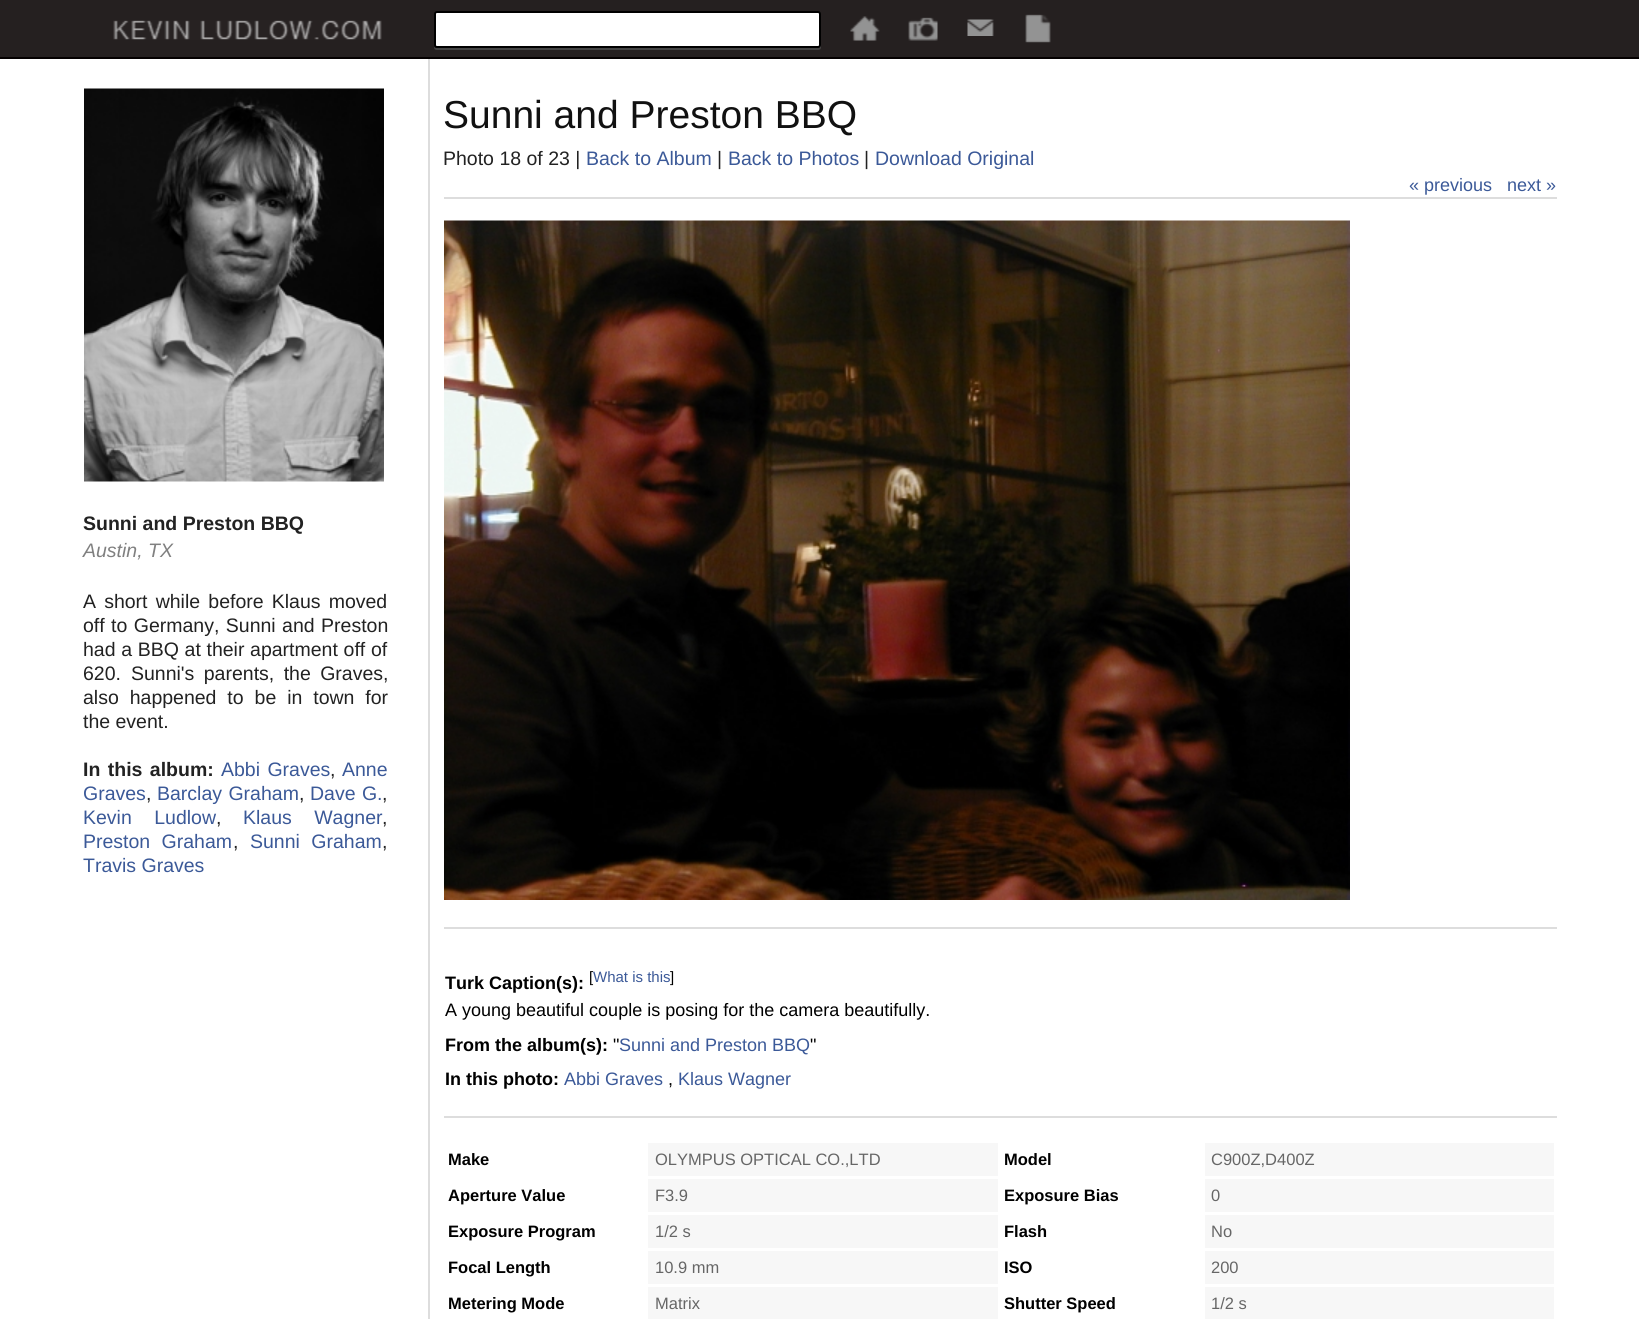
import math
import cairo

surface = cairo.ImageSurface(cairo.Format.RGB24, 1639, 1319)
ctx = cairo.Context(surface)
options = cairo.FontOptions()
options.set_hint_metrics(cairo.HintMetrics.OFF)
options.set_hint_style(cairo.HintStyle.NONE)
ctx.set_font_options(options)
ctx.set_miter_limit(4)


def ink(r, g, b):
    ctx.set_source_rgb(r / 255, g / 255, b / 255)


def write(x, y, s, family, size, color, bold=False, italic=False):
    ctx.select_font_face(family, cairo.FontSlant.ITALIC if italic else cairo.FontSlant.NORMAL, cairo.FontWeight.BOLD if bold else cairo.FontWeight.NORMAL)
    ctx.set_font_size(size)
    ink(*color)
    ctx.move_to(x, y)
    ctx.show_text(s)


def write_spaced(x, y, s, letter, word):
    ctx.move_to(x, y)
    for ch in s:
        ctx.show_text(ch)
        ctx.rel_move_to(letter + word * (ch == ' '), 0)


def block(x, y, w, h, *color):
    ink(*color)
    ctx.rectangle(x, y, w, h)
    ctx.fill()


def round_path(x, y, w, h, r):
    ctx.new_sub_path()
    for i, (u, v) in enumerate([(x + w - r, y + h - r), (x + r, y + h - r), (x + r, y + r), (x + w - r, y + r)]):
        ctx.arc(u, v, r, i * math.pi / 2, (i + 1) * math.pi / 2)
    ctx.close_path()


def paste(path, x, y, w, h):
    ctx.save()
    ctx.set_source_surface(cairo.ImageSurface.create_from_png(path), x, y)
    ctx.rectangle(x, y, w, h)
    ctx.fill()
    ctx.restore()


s1 = dict(family="Liberation Sans", size=19.5, color=(34, 34, 34), bold=True)
s2 = dict(family="Liberation Sans", size=19.5, color=(128, 128, 128), italic=True)
s3 = dict(family="Liberation Sans", size=19.5, color=(34, 34, 34))
s4 = dict(family="Liberation Sans", size=19.5, color=(59, 89, 152))
s5 = dict(family="Liberation Sans", size=39, color=(17, 17, 17))
s6 = dict(family="Liberation Sans", size=18, color=(59, 89, 152))
s7 = dict(family="Liberation Sans", size=18, color=(0, 0, 0), bold=True)
s8 = dict(family="Liberation Sans", size=15, color=(0, 0, 0))
s9 = dict(family="Liberation Sans", size=15, color=(59, 89, 152))
s10 = dict(family="Liberation Sans", size=18, color=(0, 0, 0))
s11 = dict(family="Liberation Sans", size=16.5, color=(0, 0, 0), bold=True)
s12 = dict(family="Liberation Sans", size=16.5, color=(102, 102, 102))

ink(255, 255, 255)
ctx.paint()
block(0, 0, 1639, 57, 37, 32, 32)
block(0, 57, 1639, 2, 4, 0, 0)
paste("pic1.png", 113, 20, 269, 20)
ink(68, 68, 68)
ctx.new_path()
ctx.move_to(434, 47)
ctx.curve_to(434, 49, 435, 50, 437, 50)
ctx.line_to(818, 50)
ctx.curve_to(820, 50, 821, 49, 821, 47)
ctx.line_to(821, 15)
ctx.line_to(820, 13)
ctx.line_to(820, 45)
ctx.curve_to(820, 47, 819, 48, 818, 48)
ctx.line_to(436, 48)
ctx.curve_to(435, 48, 435, 47, 434, 47)
ctx.close_path()
ctx.fill()
ink(255, 255, 255)
round_path(435, 12, 385, 35, 2)
ctx.fill_preserve()
ink(0, 0, 0)
ctx.stroke()
paste("pic2.png", 850, 16, 30, 25)
paste("pic3.png", 908, 17, 30, 24)
paste("pic4.png", 967, 19, 27, 17)
paste("pic5.png", 1025, 14, 26, 29)
block(428, 59, 2, 1260, 221, 221, 221)
paste("pic6.png", 84, 88, 300, 394)
write(83, 530, "Sunni and Preston BBQ", **s1)
write(83, 557, "Austin, TX", **s2)
ctx.select_font_face("Liberation Sans")
ink(34, 34, 34)
write_spaced(83, 608, "A short while before Klaus moved", 0, 2.75)
write_spaced(83, 632, "off to Germany, Sunni and Preston", 0, 1)
write_spaced(83, 656, "had a BBQ at their apartment off of", 0, 0.25)
write(83, 680, "620.", **s3)
write_spaced(131, 680, "Sunni's parents, the Graves,", 0, 4)
write_spaced(83, 704, "also happened to be in town for", 0, 5.5)
write(83, 728, "the event.", **s3)
ctx.select_font_face("Liberation Sans", cairo.FontSlant.NORMAL, cairo.FontWeight.BOLD)
write_spaced(83, 776, "In this album:", 0, 2)
ctx.select_font_face("Liberation Sans")
ink(59, 89, 152)
write_spaced(221, 776, "Abbi Graves", 0, 2)
write(330, 776, ",", **s3)
write(342, 776, "Anne", **s4)
write(83, 800, "Graves", **s4)
write(146, 800, ",", **s3)
ink(59, 89, 152)
write_spaced(157, 800, "Barclay Graham", 0, 1)
write(299, 800, ",", **s3)
ink(59, 89, 152)
write_spaced(310, 800, "Dave G.", 0, 1)
write(382, 800, ",", **s3)
ink(59, 89, 152)
write_spaced(83, 824, "Kevin Ludlow", 0, 17)
write(216, 824, ",", **s3)
ink(59, 89, 152)
write_spaced(243, 824, "Klaus Wagner", 0, 17)
write(382, 824, ",", **s3)
ink(59, 89, 152)
write_spaced(83, 848, "Preston Graham", 0, 6)
write(233, 848, ",", **s3)
ink(59, 89, 152)
write_spaced(250, 848, "Sunni Graham", 0, 6)
write(382, 848, ",", **s3)
write(83, 872, "Travis Graves", **s4)
block(444, 197, 1113, 2, 221, 221, 221)
write(443, 128, "Sunni and Preston BBQ", **s5)
write(443, 165, "Photo 18 of 23 |", **s3)
write(586, 165, "Back to Album", **s4)
write(717, 165, "|", **s3)
write(728, 165, "Back to Photos", **s4)
write(864, 165, "|", **s3)
write(875, 165, "Download Original", **s4)
write(1409, 191, "« previous", **s6)
write(1507, 191, "next »", **s6)
paste("pic7.png", 444, 220, 906, 680)
block(444, 927, 1113, 2, 221, 221, 221)
write(445, 989, "Turk Caption(s):", **s7)
write(589, 982, "[", **s8)
write(593, 982, "What is this", **s9)
write(670, 982, "]", **s8)
write(445, 1016, "A young beautiful couple is posing for the camera beautifully.", **s10)
write(445, 1051, "From the album(s):", **s7)
write(613, 1051, "\"", **s10)
write(619, 1051, "Sunni and Preston BBQ", **s6)
write(810, 1051, "\"", **s10)
write(445, 1085, "In this photo:", **s7)
write(564, 1085, "Abbi Graves", **s6)
write(668, 1085, ",", **s10)
write(678, 1085, "Klaus Wagner", **s6)
block(444, 1116, 1113, 2, 221, 221, 221)
write(448, 1165, "Make", **s11)
block(648, 1143, 350, 33, 247, 247, 247)
write(655, 1165, "OLYMPUS OPTICAL CO.,LTD", **s12)
write(448, 1201, "Aperture Value", **s11)
block(648, 1179, 350, 33, 247, 247, 247)
write(655, 1201, "F3.9", **s12)
write(448, 1237, "Exposure Program", **s11)
block(648, 1215, 350, 33, 247, 247, 247)
write(655, 1237, "1/2 s", **s12)
write(448, 1273, "Focal Length", **s11)
block(648, 1251, 350, 33, 247, 247, 247)
write(655, 1273, "10.9 mm", **s12)
write(448, 1309, "Metering Mode", **s11)
block(648, 1287, 350, 32, 247, 247, 247)
write(655, 1309, "Matrix", **s12)
write(1004, 1165, "Model", **s11)
block(1205, 1143, 349, 33, 247, 247, 247)
write(1211, 1165, "C900Z,D400Z", **s12)
write(1004, 1201, "Exposure Bias", **s11)
block(1205, 1179, 349, 33, 247, 247, 247)
write(1211, 1201, "0", **s12)
write(1004, 1237, "Flash", **s11)
block(1205, 1215, 349, 33, 247, 247, 247)
write(1211, 1237, "No", **s12)
write(1004, 1273, "ISO", **s11)
block(1205, 1251, 349, 33, 247, 247, 247)
write(1211, 1273, "200", **s12)
write(1004, 1309, "Shutter Speed", **s11)
block(1205, 1287, 349, 32, 247, 247, 247)
write(1211, 1309, "1/2 s", **s12)
surface.write_to_png("screenshot.png")
